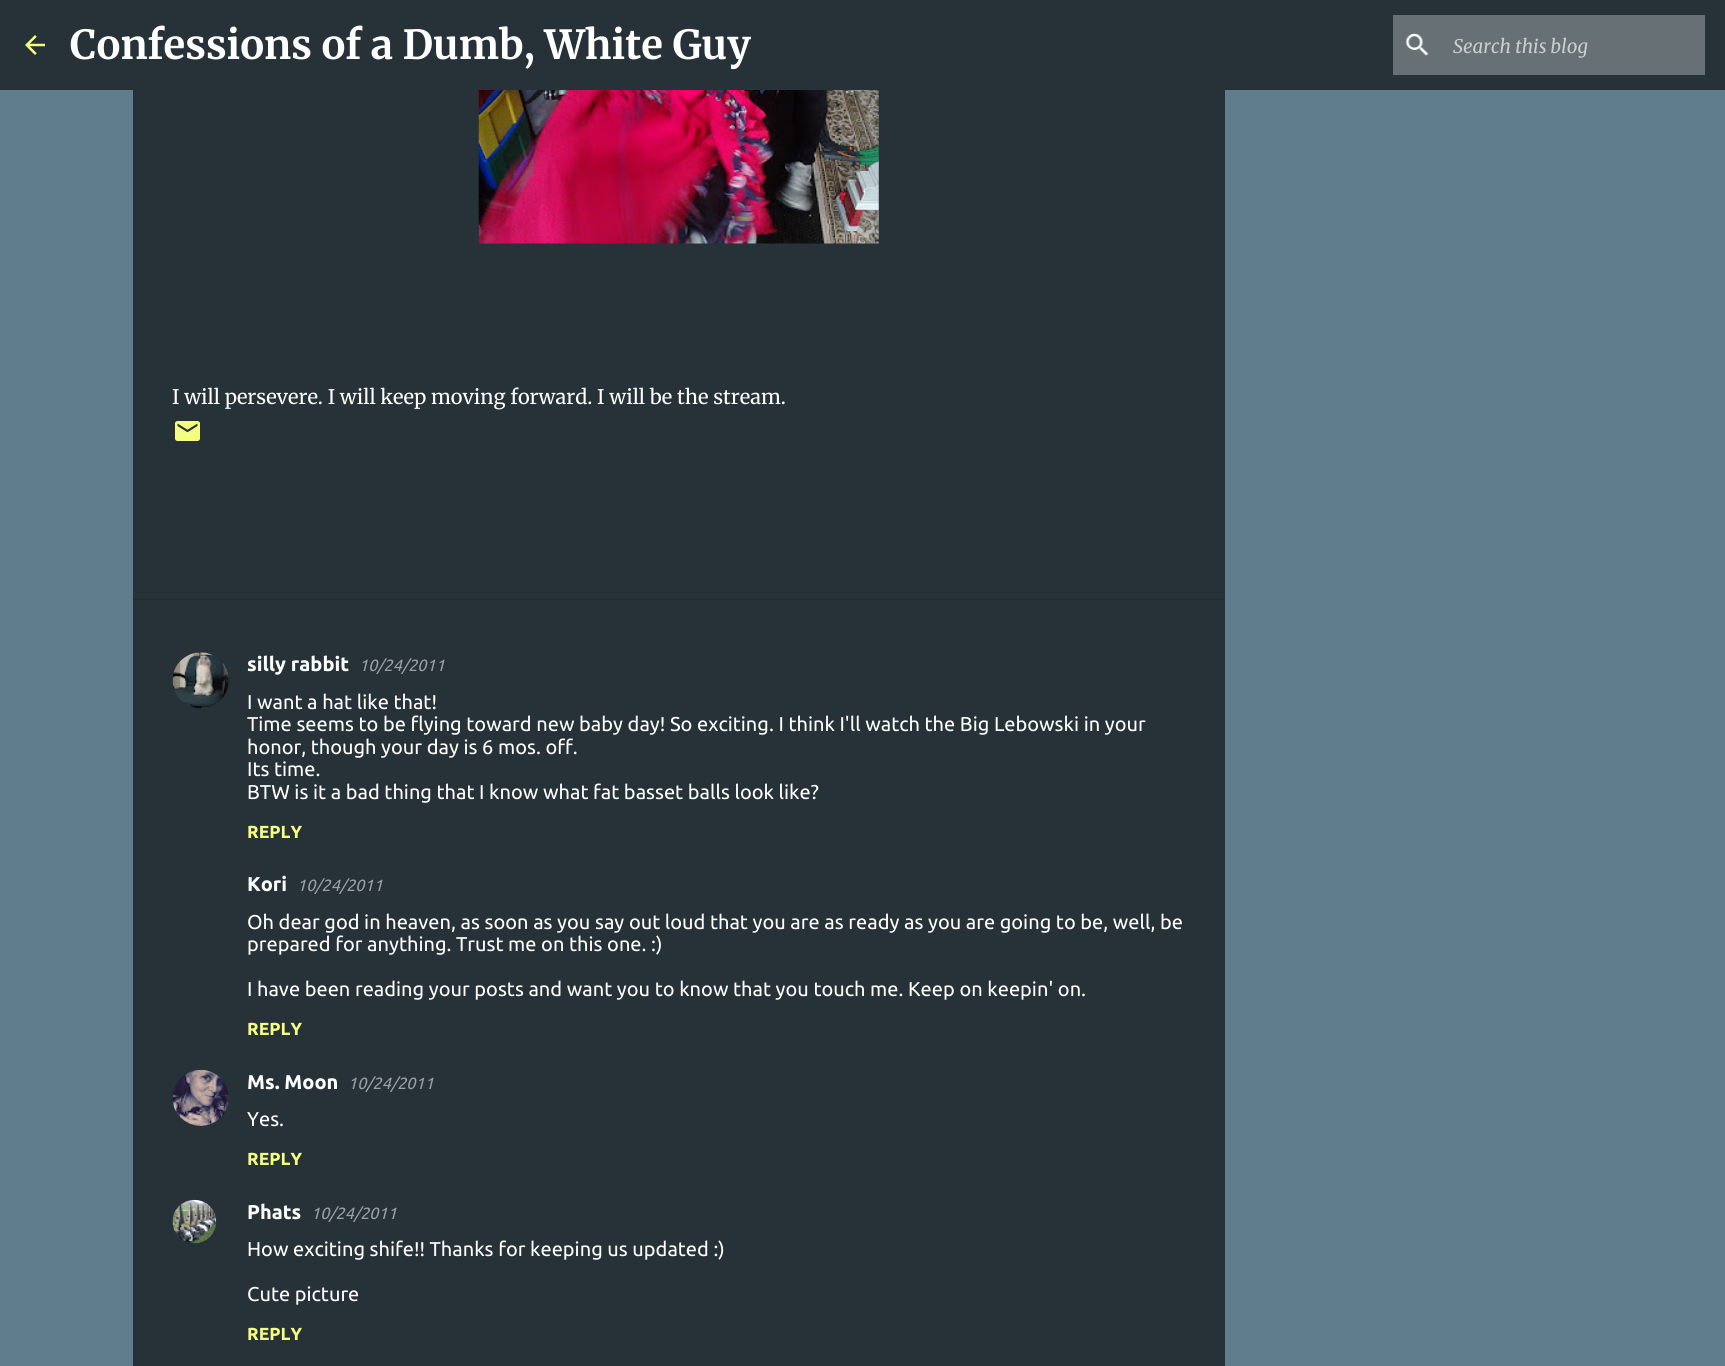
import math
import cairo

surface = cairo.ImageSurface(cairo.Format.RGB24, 1725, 1366)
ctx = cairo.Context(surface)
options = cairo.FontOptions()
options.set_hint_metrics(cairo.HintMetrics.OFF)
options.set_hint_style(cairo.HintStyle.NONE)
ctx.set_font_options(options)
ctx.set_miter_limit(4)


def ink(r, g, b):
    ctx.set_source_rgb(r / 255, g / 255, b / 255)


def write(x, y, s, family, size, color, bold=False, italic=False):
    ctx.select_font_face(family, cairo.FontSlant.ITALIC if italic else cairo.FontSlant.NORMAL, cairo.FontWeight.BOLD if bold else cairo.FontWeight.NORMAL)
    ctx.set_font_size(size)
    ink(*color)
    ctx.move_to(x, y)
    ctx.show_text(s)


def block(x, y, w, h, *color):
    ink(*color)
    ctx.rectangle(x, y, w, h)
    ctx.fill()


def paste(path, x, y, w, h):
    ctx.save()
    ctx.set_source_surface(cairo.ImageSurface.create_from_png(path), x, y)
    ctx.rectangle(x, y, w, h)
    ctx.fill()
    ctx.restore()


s1 = dict(family="Merriweather", size=40, color=(255, 255, 255), bold=True)
s2 = dict(family="Merriweather", size=18.75, color=(203, 206, 208), italic=True)
s3 = dict(family="Merriweather", size=20, color=(255, 255, 255))
s4 = dict(family="Ubuntu", size=20, color=(255, 255, 255), bold=True)
s5 = dict(family="Ubuntu", size=16.25, color=(155, 161, 163), italic=True)
s6 = dict(family="Ubuntu", size=20, color=(255, 255, 255))
s7 = dict(family="Ubuntu", size=17.5, color=(244, 255, 129), bold=True)

ink(96, 125, 139)
ctx.paint()
block(0, 0, 1725, 90, 38, 50, 56)
paste("pic1.png", 25, 35, 20, 20)
write(70, 59, "Confessions of a Dumb, White Guy", **s1)
block(1393, 15, 312, 60, 103, 112, 116)
paste("pic2.png", 1405, 33, 24, 23)
write(1453, 53, "Search this blog", **s2)
block(133, 90, 1092, 509, 38, 50, 56)
paste("pic3.png", 478, 90, 401, 154)
write(172, 404, "I will persevere. I will keep moving forward. I will be the stream.", **s3)
paste("pic4.png", 175, 421, 25, 20)
block(133, 600, 1092, 766, 38, 50, 56)
block(133, 599, 1092, 1, 33, 44, 49)
paste("pic5.png", 172, 652, 57, 57)
write(247, 671, "silly rabbit", **s4)
write(359, 671, "10/24/2011", **s5)
write(247, 709, "I want a hat like that!", **s6)
write(247, 731, "Time seems to be flying toward new baby day! So exciting. I think I'll watch the Big Lebowski in your", **s6)
write(247, 754, "honor, though your day is 6 mos. off.", **s6)
write(247, 776, "Its time.", **s6)
write(247, 799, "BTW is it a bad thing that I know what fat basset balls look like?", **s6)
write(247, 838, "REPLY", **s7)
write(247, 891, "Kori", **s4)
write(297, 891, "10/24/2011", **s5)
write(247, 929, "Oh dear god in heaven, as soon as you say out loud that you are as ready as you are going to be, well, be", **s6)
write(247, 951, "prepared for anything. Trust me on this one. :)", **s6)
write(247, 996, "I have been reading your posts and want you to know that you touch me. Keep on keepin' on.", **s6)
write(247, 1035, "REPLY", **s7)
paste("pic6.png", 172, 1069, 57, 57)
write(247, 1089, "Ms. Moon", **s4)
write(348, 1089, "10/24/2011", **s5)
write(247, 1126, "Yes.", **s6)
write(247, 1165, "REPLY", **s7)
paste("pic7.png", 172, 1199, 45, 45)
write(247, 1219, "Phats", **s4)
write(311, 1219, "10/24/2011", **s5)
write(247, 1256, "How exciting shife!! Thanks for keeping us updated :)", **s6)
write(247, 1301, "Cute picture", **s6)
write(247, 1340, "REPLY", **s7)
surface.write_to_png("screenshot.png")
